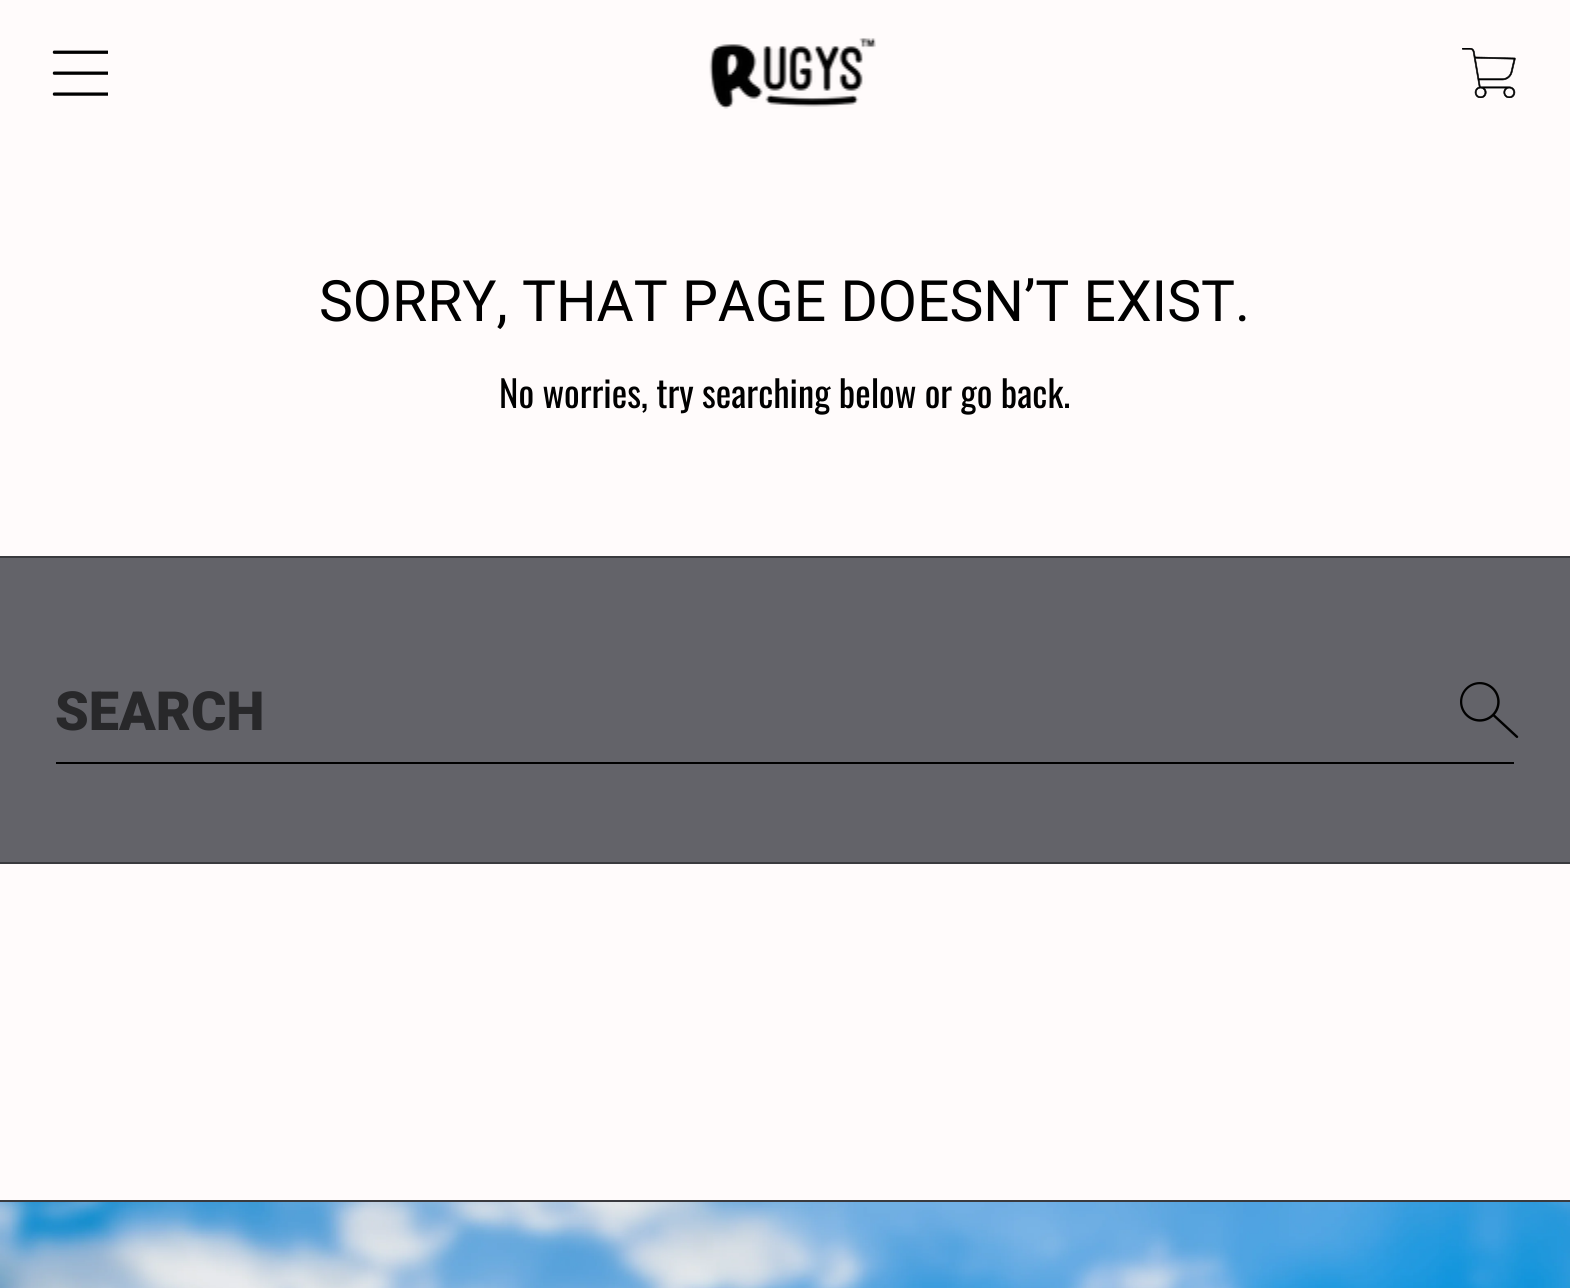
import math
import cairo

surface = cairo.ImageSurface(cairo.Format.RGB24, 1570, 1288)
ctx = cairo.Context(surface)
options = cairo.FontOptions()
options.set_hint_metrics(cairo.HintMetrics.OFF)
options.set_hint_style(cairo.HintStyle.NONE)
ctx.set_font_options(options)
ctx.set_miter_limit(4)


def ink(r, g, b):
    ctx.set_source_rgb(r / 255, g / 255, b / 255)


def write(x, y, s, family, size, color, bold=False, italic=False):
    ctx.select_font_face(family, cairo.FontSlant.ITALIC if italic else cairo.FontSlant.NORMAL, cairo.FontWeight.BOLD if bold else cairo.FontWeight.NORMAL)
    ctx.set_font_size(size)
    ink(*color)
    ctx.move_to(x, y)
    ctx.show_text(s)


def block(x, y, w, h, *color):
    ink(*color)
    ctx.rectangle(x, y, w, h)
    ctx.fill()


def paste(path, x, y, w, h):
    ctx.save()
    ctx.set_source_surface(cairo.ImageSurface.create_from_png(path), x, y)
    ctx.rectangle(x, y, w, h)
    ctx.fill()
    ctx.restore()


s1 = dict(family="Roboto", size=57, color=(0, 0, 0))
s2 = dict(family="Oswald", size=36.75, color=(0, 0, 0))
s3 = dict(family="Roboto Black", size=54, color=(40, 40, 42))

ink(255, 251, 251)
ctx.paint()
paste("pic1.png", 52, 50, 56, 46)
paste("pic2.png", 709, 38, 167, 71)
paste("pic3.png", 1462, 48, 54, 50)
write(319, 321, "SORRY, THAT PAGE DOESN’T EXIST.", **s1)
write(499, 408, "No worries, try searching below or go back.", **s2)
block(0, 558, 1570, 304, 99, 99, 105)
block(0, 556, 1570, 2, 58, 58, 62)
block(0, 862, 1570, 2, 58, 58, 62)
block(56, 762, 1458, 2, 0, 0, 0)
write(55, 730, "SEARCH", **s3)
paste("pic4.png", 1460, 682, 59, 56)
paste("pic5.png", 0, 1202, 1570, 86)
block(0, 1200, 1570, 2, 58, 58, 62)
surface.write_to_png("screenshot.png")
